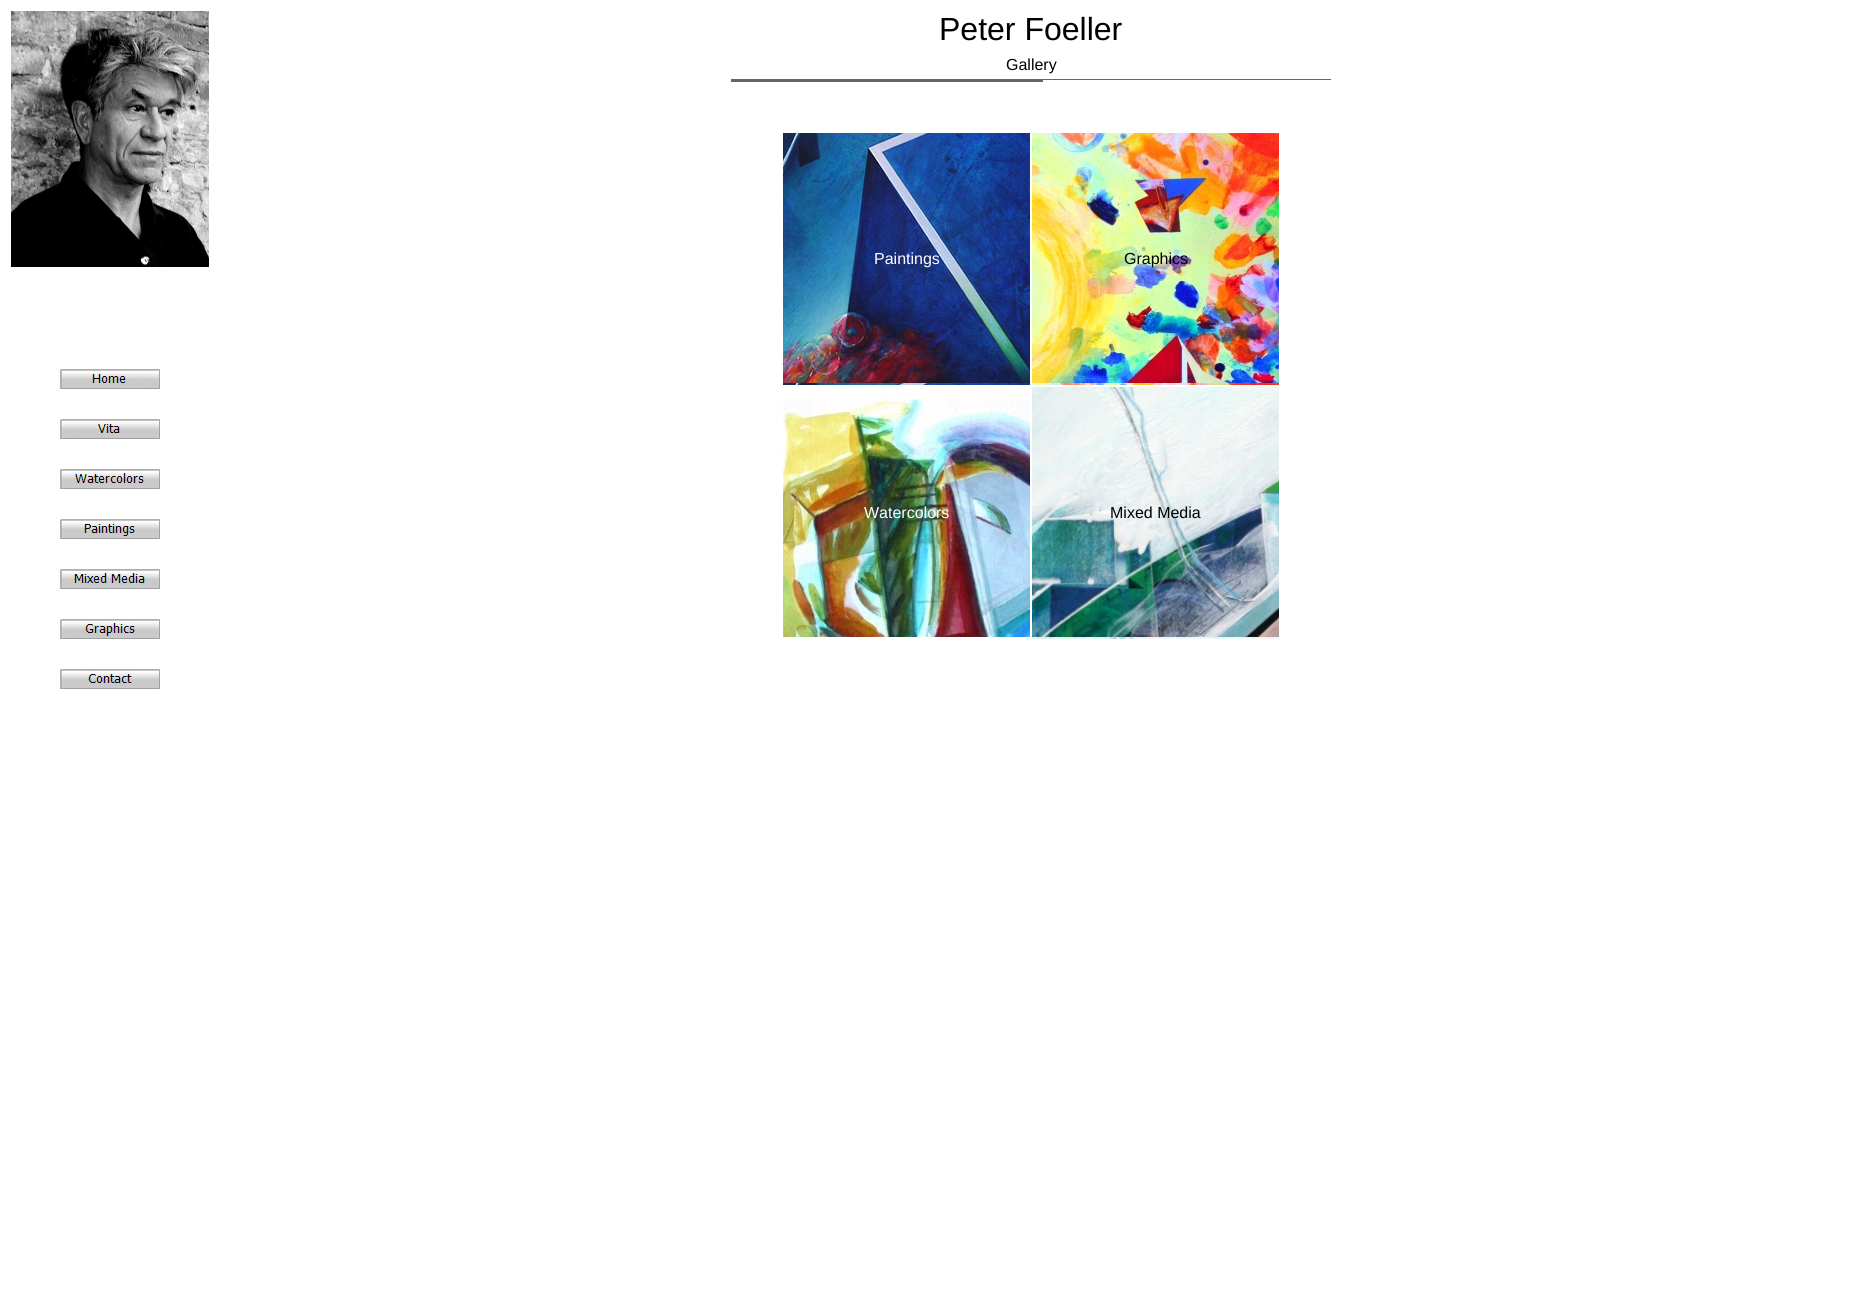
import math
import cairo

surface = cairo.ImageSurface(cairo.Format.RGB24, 1860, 1305)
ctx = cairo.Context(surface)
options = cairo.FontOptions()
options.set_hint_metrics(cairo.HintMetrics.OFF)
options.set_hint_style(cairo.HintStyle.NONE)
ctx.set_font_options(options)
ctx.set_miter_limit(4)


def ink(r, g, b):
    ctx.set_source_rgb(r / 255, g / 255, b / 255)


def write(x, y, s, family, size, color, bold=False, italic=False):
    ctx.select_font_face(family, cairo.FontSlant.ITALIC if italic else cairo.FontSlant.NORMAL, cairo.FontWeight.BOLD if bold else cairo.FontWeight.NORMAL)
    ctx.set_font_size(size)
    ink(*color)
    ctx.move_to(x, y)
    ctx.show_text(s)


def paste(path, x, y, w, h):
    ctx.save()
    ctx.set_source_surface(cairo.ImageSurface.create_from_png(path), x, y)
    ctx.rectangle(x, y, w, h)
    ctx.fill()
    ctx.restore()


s1 = dict(family="Liberation Sans", size=32, color=(0, 0, 0))
s2 = dict(family="Liberation Sans", size=16, color=(0, 0, 0))
s3 = dict(family="Liberation Sans", size=16, color=(255, 255, 255))

ink(255, 255, 255)
ctx.paint()
paste("pic1.png", 11, 11, 198, 256)
paste("pic2.png", 60, 369, 100, 20)
paste("pic3.png", 60, 419, 100, 20)
paste("pic4.png", 60, 469, 100, 20)
paste("pic5.png", 60, 519, 100, 20)
paste("pic6.png", 60, 569, 100, 20)
paste("pic7.png", 60, 619, 100, 20)
paste("pic8.png", 60, 669, 100, 20)
write(939, 40, "Peter Foeller", **s1)
write(1006, 70, "Gallery", **s2)
paste("pic9.png", 731, 79, 600, 3)
paste("pic10.png", 783, 133, 247, 252)
write(874, 264, "Paintings", **s3)
paste("pic11.png", 1032, 133, 247, 252)
write(1124, 264, "Graphics", **s2)
paste("pic12.png", 783, 396, 247, 241)
write(864, 518, "Watercolors", **s3)
paste("pic13.png", 1032, 387, 247, 252)
write(1110, 518, "Mixed Media", **s2)
surface.write_to_png("screenshot.png")
